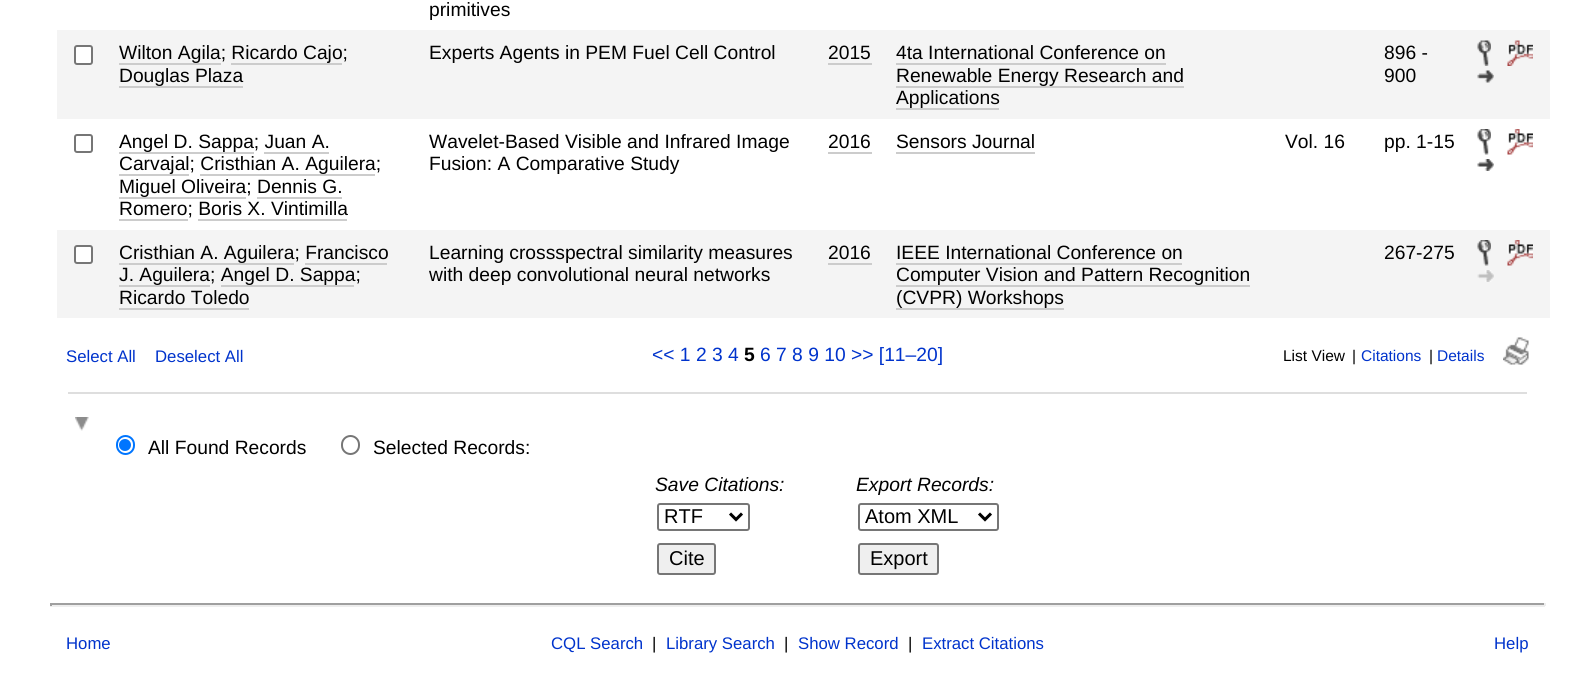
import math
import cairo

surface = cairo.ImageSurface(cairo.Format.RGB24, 1594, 677)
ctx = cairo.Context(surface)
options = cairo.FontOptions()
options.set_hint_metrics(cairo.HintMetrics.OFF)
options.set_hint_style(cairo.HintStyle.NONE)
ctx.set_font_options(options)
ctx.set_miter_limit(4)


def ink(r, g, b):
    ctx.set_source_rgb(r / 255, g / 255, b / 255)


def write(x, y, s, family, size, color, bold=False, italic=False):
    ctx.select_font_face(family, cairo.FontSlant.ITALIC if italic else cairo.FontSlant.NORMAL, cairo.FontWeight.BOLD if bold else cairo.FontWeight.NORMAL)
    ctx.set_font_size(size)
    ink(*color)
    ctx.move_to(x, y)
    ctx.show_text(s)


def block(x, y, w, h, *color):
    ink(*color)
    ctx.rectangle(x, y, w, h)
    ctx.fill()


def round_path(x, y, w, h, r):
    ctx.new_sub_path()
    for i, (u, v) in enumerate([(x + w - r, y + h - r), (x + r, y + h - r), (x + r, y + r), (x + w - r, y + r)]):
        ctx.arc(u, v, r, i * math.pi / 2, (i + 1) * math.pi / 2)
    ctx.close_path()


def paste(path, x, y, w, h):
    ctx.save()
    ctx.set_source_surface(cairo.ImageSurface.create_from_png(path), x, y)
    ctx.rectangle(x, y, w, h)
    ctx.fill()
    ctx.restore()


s1 = dict(family="Liberation Sans", size=19.25, color=(0, 0, 0))
s2 = dict(family="Liberation Sans", size=16.75, color=(0, 51, 204))
s3 = dict(family="Liberation Sans", size=19.25, color=(0, 51, 204))
s4 = dict(family="Liberation Sans", size=19.25, color=(0, 0, 0), bold=True)
s5 = dict(family="Liberation Sans", size=15.5, color=(0, 0, 0))
s6 = dict(family="Liberation Sans", size=15.5, color=(0, 51, 204))
s7 = dict(family="Liberation Sans", size=19.25, color=(0, 0, 0), italic=True)
s8 = dict(family="Liberation Sans", size=20, color=(0, 0, 0))
s9 = dict(family="Liberation Sans", size=16.75, color=(0, 0, 0))

ink(255, 255, 255)
ctx.paint()
write(429, 16, "primitives", **s1)
block(57, 30, 1493, 89, 244, 244, 244)
ink(255, 255, 255)
round_path(75, 46, 17, 18, 2)
ctx.fill_preserve()
ink(118, 118, 118)
ctx.stroke()
write(119, 59, "Wilton Agila; Ricardo Cajo;", **s1)
block(119, 63, 102, 2, 204, 204, 204)
block(231, 63, 111, 2, 204, 204, 204)
write(119, 82, "Douglas Plaza", **s1)
block(119, 86, 124, 2, 204, 204, 204)
write(429, 59, "Experts Agents in PEM Fuel Cell Control", **s1)
write(828, 59, "2015", **s1)
block(828, 63, 44, 2, 204, 204, 204)
write(896, 59, "4ta International Conference on", **s1)
block(896, 63, 270, 2, 204, 204, 204)
write(896, 82, "Renewable Energy Research and", **s1)
block(896, 86, 288, 2, 204, 204, 204)
write(896, 104, "Applications", **s1)
block(896, 108, 103, 2, 204, 204, 204)
write(1384, 59, "896 -", **s1)
write(1384, 82, "900", **s1)
paste("pic1.png", 1477, 40, 14, 26)
paste("pic2.png", 1507, 40, 26, 26)
paste("pic3.png", 1477, 70, 17, 13)
round_path(75, 135, 17, 17, 2)
ink(118, 118, 118)
ctx.stroke()
write(119, 148, "Angel D. Sappa; Juan A.", **s1)
block(119, 152, 135, 2, 204, 204, 204)
block(264, 152, 65, 2, 204, 204, 204)
write(119, 170, "Carvajal; Cristhian A. Aguilera;", **s1)
block(119, 174, 70, 2, 204, 204, 204)
block(200, 174, 175, 2, 204, 204, 204)
write(119, 193, "Miguel Oliveira; Dennis G.", **s1)
block(119, 197, 127, 2, 204, 204, 204)
block(257, 197, 85, 2, 204, 204, 204)
write(119, 215, "Romero; Boris X. Vintimilla", **s1)
block(119, 219, 69, 2, 204, 204, 204)
block(198, 219, 149, 2, 204, 204, 204)
write(429, 148, "Wavelet-Based Visible and Infrared Image", **s1)
write(429, 170, "Fusion: A Comparative Study", **s1)
write(828, 148, "2016", **s1)
block(828, 152, 44, 2, 204, 204, 204)
write(896, 148, "Sensors Journal", **s1)
block(896, 152, 139, 2, 204, 204, 204)
write(1285, 148, "Vol. 16", **s1)
write(1384, 148, "pp. 1-15", **s1)
paste("pic4.png", 1477, 129, 14, 26)
paste("pic5.png", 1507, 129, 26, 26)
paste("pic6.png", 1477, 159, 17, 12)
block(57, 230, 1493, 88, 244, 244, 244)
ink(255, 255, 255)
round_path(75, 246, 17, 17, 2)
ctx.fill_preserve()
ink(118, 118, 118)
ctx.stroke()
write(119, 259, "Cristhian A. Aguilera; Francisco", **s1)
block(119, 263, 175, 2, 204, 204, 204)
block(305, 263, 82, 2, 204, 204, 204)
write(119, 281, "J. Aguilera; Angel D. Sappa;", **s1)
block(119, 285, 91, 2, 204, 204, 204)
block(221, 285, 133, 2, 204, 204, 204)
write(119, 304, "Ricardo Toledo", **s1)
block(119, 308, 130, 2, 204, 204, 204)
write(429, 259, "Learning crossspectral similarity measures", **s1)
write(429, 281, "with deep convolutional neural networks", **s1)
write(828, 259, "2016", **s1)
block(828, 263, 44, 2, 204, 204, 204)
write(896, 259, "IEEE International Conference on", **s1)
block(896, 263, 286, 2, 204, 204, 204)
write(896, 281, "Computer Vision and Pattern Recognition", **s1)
block(896, 285, 354, 2, 204, 204, 204)
write(896, 304, "(CVPR) Workshops", **s1)
block(896, 308, 168, 2, 204, 204, 204)
write(1384, 259, "267-275", **s1)
paste("pic7.png", 1477, 240, 14, 26)
paste("pic8.png", 1507, 240, 26, 26)
paste("pic9.png", 1477, 270, 17, 12)
write(66, 362, "Select All", **s2)
write(155, 362, "Deselect All", **s2)
write(652, 361, "<< 1 2 3 4", **s3)
write(744, 361, "5", **s4)
write(760, 361, "6 7 8 9 10 >> [11–20]", **s3)
write(1283, 361, "List View", **s5)
write(1352, 361, "|", **s5)
write(1361, 361, "Citations", **s6)
write(1429, 361, "|", **s5)
write(1437, 361, "Details", **s6)
paste("pic10.png", 1503, 337, 26, 28)
block(68, 392, 1459, 2, 222, 222, 222)
paste("pic11.png", 75, 417, 14, 14)
round_path(117, 436, 17, 18, 8.5)
ink(0, 117, 255)
ctx.stroke()
ctx.arc(125, 445, 6, 0, 2 * math.pi)
ctx.fill()
write(148, 454, "All Found Records", **s1)
round_path(342, 436, 17, 18, 8.5)
ink(118, 118, 118)
ctx.stroke()
write(373, 454, "Selected Records:", **s1)
write(655, 491, "Save Citations:", **s7)
round_path(658, 504, 91, 26, 2)
ink(118, 118, 118)
ctx.stroke()
ctx.new_path()
ctx.move_to(730, 513.5)
ctx.line_to(736, 519.5)
ctx.line_to(742, 513.5)
ink(0, 0, 0)
ctx.set_line_width(3)
ctx.stroke()
write(664, 523, "RTF", **s8)
ink(239, 239, 239)
round_path(658, 544, 57, 30, 2)
ctx.fill_preserve()
ink(118, 118, 118)
ctx.set_line_width(2)
ctx.stroke()
write(669, 565, "Cite", **s8)
write(856, 491, "Export Records:", **s7)
round_path(859, 504, 139, 26, 2)
ink(118, 118, 118)
ctx.stroke()
ctx.new_path()
ctx.move_to(979, 513.5)
ctx.line_to(985, 519.5)
ctx.line_to(991, 513.5)
ink(0, 0, 0)
ctx.set_line_width(3)
ctx.stroke()
write(865, 523, "Atom XML", **s8)
ink(239, 239, 239)
round_path(859, 544, 79, 30, 2)
ctx.fill_preserve()
ink(118, 118, 118)
ctx.set_line_width(2)
ctx.stroke()
write(870, 565, "Export", **s8)
block(50, 603, 1495, 2, 159, 159, 159)
block(1544, 603, 2, 3, 238, 238, 238)
block(50, 605, 1495, 2, 238, 238, 238)
block(50, 603, 2, 3, 159, 159, 159)
write(66, 649, "Home", **s2)
write(551, 649, "CQL Search", **s2)
write(652, 649, "|", **s9)
write(666, 649, "Library Search", **s2)
write(784, 649, "|", **s9)
write(798, 649, "Show Record", **s2)
write(908, 649, "|", **s9)
write(922, 649, "Extract Citations", **s2)
write(1494, 649, "Help", **s2)
surface.write_to_png("screenshot.png")
